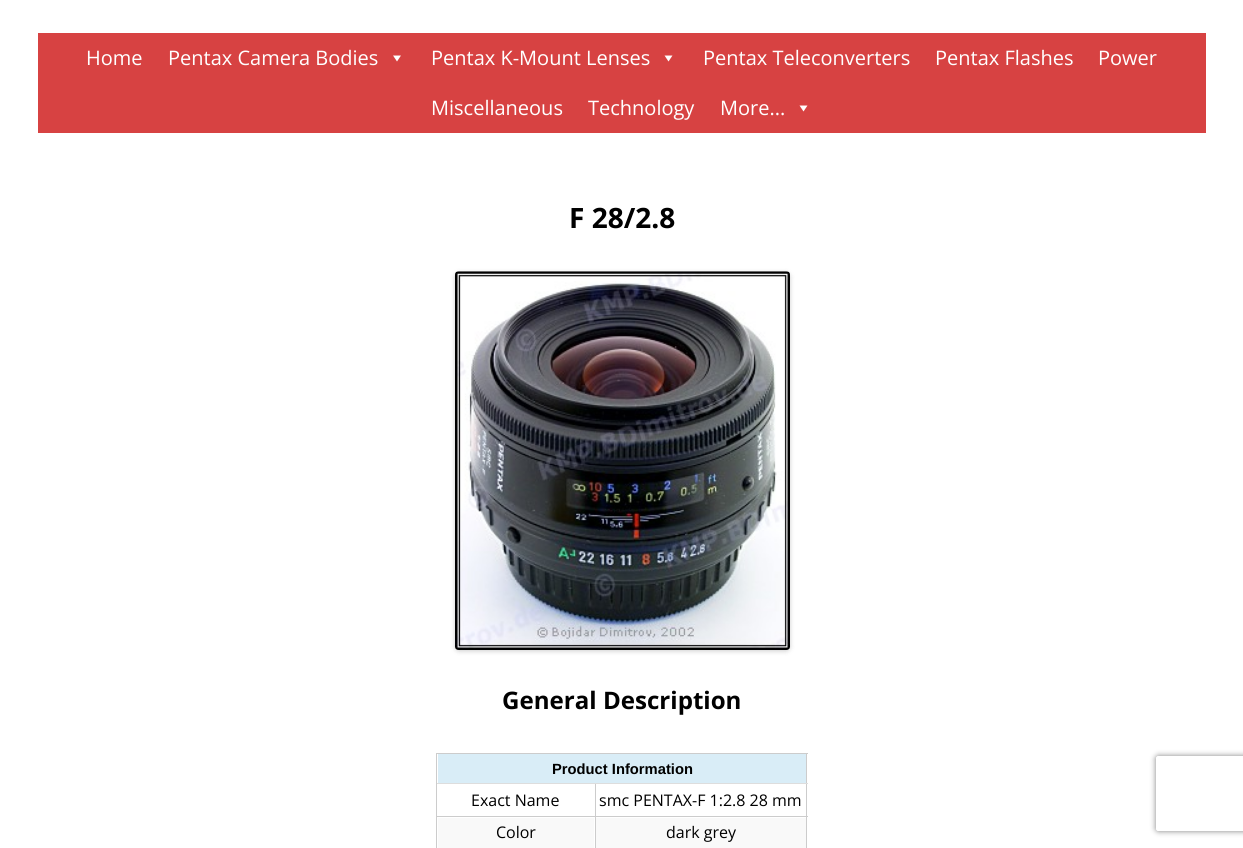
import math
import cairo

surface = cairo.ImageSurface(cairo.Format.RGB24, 1243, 848)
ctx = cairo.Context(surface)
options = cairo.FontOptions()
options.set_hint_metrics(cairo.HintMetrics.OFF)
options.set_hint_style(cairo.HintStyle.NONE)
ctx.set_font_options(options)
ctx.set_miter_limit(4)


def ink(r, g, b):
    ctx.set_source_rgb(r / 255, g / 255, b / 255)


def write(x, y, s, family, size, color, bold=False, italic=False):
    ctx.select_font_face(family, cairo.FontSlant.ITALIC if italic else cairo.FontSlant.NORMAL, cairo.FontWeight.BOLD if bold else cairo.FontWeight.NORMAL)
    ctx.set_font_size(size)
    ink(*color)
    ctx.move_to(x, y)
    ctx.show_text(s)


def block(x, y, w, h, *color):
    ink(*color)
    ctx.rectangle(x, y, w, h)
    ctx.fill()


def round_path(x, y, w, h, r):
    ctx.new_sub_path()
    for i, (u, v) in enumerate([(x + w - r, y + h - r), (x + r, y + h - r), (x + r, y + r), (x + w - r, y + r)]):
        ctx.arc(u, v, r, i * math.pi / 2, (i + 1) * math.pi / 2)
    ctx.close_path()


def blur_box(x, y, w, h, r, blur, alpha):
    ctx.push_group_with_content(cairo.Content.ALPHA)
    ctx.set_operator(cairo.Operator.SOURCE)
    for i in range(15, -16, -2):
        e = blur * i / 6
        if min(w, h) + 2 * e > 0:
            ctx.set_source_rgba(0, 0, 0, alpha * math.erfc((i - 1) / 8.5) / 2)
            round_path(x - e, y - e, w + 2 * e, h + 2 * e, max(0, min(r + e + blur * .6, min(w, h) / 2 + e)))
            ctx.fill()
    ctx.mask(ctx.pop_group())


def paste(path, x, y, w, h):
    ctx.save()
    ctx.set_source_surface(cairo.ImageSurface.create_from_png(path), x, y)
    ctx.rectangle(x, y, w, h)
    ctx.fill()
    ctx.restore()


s1 = dict(family="Open Sans", size=20, color=(255, 255, 255))
s2 = dict(family="Open Sans", size=28, color=(0, 0, 0), bold=True)
s3 = dict(family="Open Sans", size=24.1, color=(0, 0, 0), bold=True)
s4 = dict(family="Liberation Sans", size=14.75, color=(0, 0, 0), bold=True)
s5 = dict(family="Open Sans", size=16, color=(0, 0, 0))

ink(255, 255, 255)
ctx.paint()
block(38, 33, 1168, 100, 215, 66, 66)
write(86, 65, "Home", **s1)
write(168, 65, "Pentax Camera Bodies", **s1)
ctx.new_path()
ctx.move_to(401, 55.5)
ctx.line_to(397, 61.5)
ctx.line_to(393, 55.5)
ctx.close_path()
ctx.fill()
write(431, 65, "Pentax K-Mount Lenses", **s1)
ctx.new_path()
ctx.move_to(672.5, 55.5)
ctx.line_to(668.5, 61.5)
ctx.line_to(664.5, 55.5)
ctx.close_path()
ctx.fill()
write(703, 65, "Pentax Teleconverters", **s1)
write(935, 65, "Pentax Flashes", **s1)
write(1098, 65, "Power", **s1)
write(431, 115, "Miscellaneous", **s1)
write(588, 115, "Technology", **s1)
write(720, 115, "More...", **s1)
ctx.new_path()
ctx.move_to(807.5, 105.5)
ctx.line_to(803.5, 111.5)
ctx.line_to(799.5, 105.5)
ctx.close_path()
ctx.fill()
write(569, 228, "F 28/2.8", **s2)
ink(0, 0, 0)
blur_box(455, 273, 335, 378, 4, 2.5, 0.2)
paste("pic1.png", 455, 271, 335, 379)
write(502, 709, "General Description", **s3)
block(438, 754, 368, 29, 217, 237, 247)
block(436, 753, 372, 1, 204, 204, 204)
block(806, 783, 1, 65, 204, 204, 204)
block(806, 753, 1, 31, 204, 204, 204)
block(595, 816, 1, 32, 204, 204, 204)
block(595, 816, 213, 1, 204, 204, 204)
block(595, 783, 1, 35, 204, 204, 204)
block(436, 816, 1, 32, 204, 204, 204)
block(436, 816, 160, 1, 204, 204, 204)
block(436, 783, 1, 35, 204, 204, 204)
block(436, 783, 372, 1, 221, 221, 221)
block(436, 753, 1, 31, 204, 204, 204)
write(552, 774, "Product Information", **s4)
write(471, 806, "Exact Name", **s5)
write(599, 806, "smc PENTAX-F 1:2.8 28 mm", **s5)
block(438, 818, 156, 30, 249, 249, 249)
write(496, 838, "Color", **s5)
block(596, 818, 210, 30, 249, 249, 249)
write(666, 838, "dark grey", **s5)
ctx.save()
ctx.set_fill_rule(cairo.FillRule.EVEN_ODD)
ctx.new_path()
ctx.move_to(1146, 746)
ctx.line_to(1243, 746)
ctx.line_to(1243, 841)
ctx.line_to(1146, 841)
ctx.close_path()
ctx.move_to(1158.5, 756)
ctx.line_to(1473.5, 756)
ctx.curve_to(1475, 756, 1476, 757, 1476, 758.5)
ctx.line_to(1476, 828.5)
ctx.curve_to(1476, 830, 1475, 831, 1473.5, 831)
ctx.line_to(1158.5, 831)
ctx.curve_to(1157, 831, 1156, 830, 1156, 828.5)
ctx.line_to(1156, 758.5)
ctx.curve_to(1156, 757, 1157, 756, 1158.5, 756)
ctx.close_path()
ctx.clip()
ink(128, 128, 128)
blur_box(1156, 756, 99, 75, 2.5, 3, 1)
ctx.restore()
surface.write_to_png("screenshot.png")
